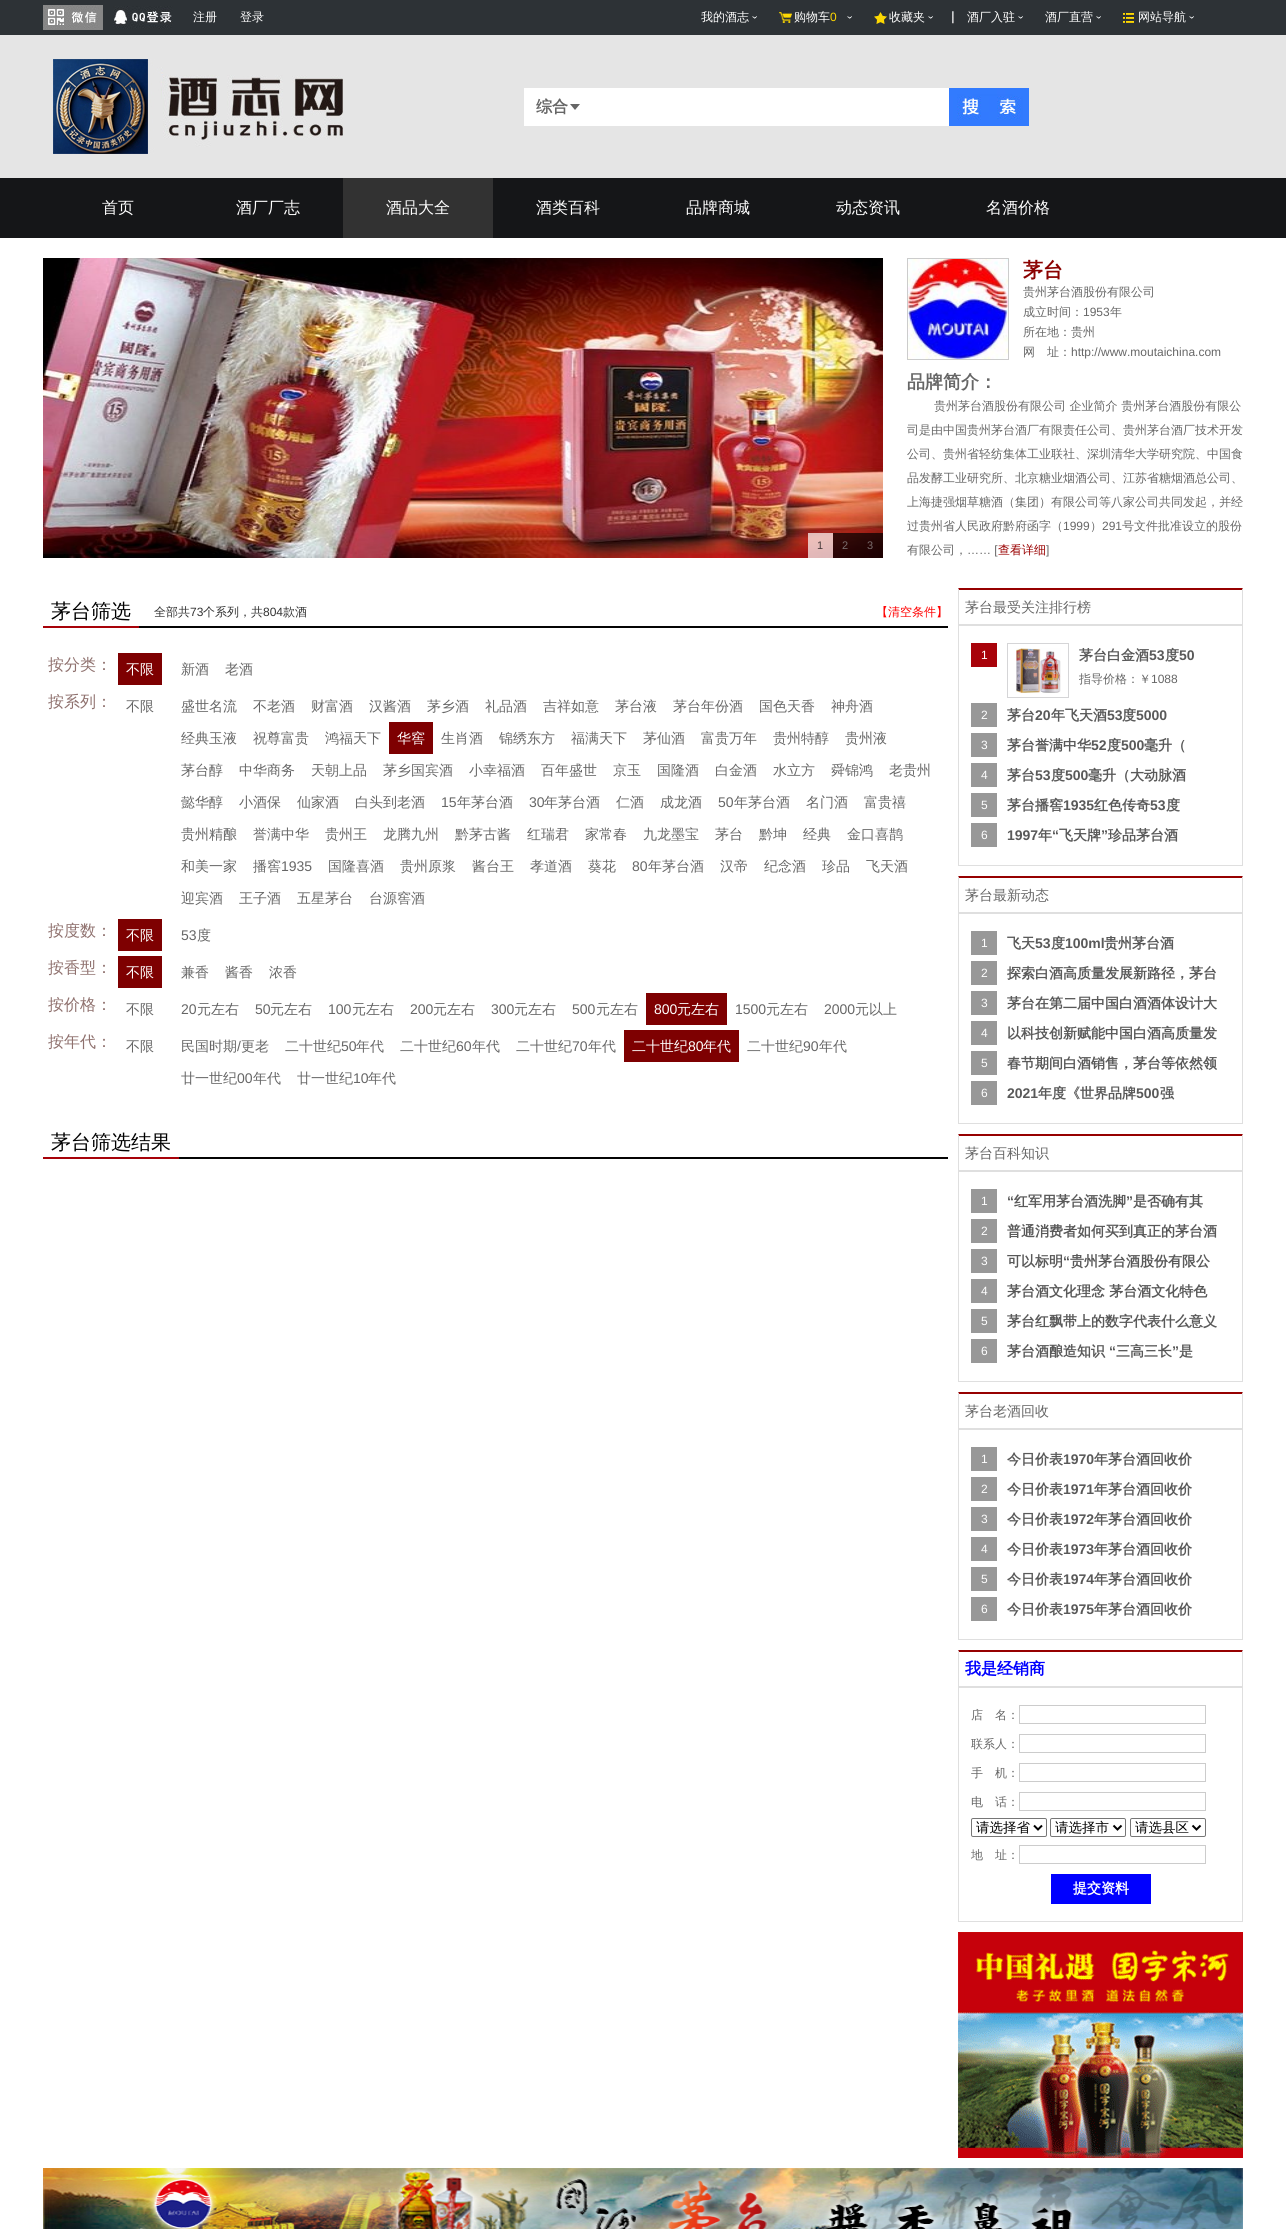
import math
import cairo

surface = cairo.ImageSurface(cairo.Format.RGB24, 1286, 2229)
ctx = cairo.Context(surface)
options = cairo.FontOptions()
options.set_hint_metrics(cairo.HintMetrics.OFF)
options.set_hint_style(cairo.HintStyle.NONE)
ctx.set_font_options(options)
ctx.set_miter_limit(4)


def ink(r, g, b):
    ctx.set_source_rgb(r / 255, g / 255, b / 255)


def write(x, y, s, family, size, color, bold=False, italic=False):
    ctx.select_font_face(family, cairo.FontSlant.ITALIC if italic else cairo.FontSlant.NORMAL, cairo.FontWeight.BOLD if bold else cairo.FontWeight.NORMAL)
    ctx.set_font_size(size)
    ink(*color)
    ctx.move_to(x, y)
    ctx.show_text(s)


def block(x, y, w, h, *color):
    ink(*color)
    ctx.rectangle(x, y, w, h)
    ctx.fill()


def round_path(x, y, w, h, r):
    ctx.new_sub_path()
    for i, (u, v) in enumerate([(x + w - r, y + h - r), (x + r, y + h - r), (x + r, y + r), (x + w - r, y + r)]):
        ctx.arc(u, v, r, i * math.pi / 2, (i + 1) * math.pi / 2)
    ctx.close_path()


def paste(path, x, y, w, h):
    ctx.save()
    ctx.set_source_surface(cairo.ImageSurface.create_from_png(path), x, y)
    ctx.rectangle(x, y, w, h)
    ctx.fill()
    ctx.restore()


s1 = dict(family="WenQuanYi Zen Hei Medium", size=12, color=(255, 255, 255))
s2 = dict(family="Liberation Sans", size=12, color=(255, 216, 0))
s3 = dict(family="WenQuanYi Zen Hei", size=16, color=(102, 102, 102), bold=True)
s4 = dict(family="WenQuanYi Zen Hei Medium", size=16, color=(255, 255, 255))
s5 = dict(family="Liberation Sans", size=11, color=(69, 56, 56))
s6 = dict(family="Liberation Sans", size=11, color=(121, 109, 109))
s7 = dict(family="WenQuanYi Zen Hei", size=20, color=(139, 1, 0), bold=True)
s8 = dict(family="WenQuanYi Zen Hei Medium", size=12, color=(102, 102, 102))
s9 = dict(family="Liberation Sans", size=12, color=(102, 102, 102))
s10 = dict(family="WenQuanYi Zen Hei", size=18, color=(102, 102, 102), bold=True)
s11 = dict(family="WenQuanYi Zen Hei Medium", size=12, color=(153, 0, 0))
s12 = dict(family="WenQuanYi Zen Hei Medium", size=20, color=(1, 1, 1))
s13 = dict(family="WenQuanYi Zen Hei Medium", size=12, color=(51, 51, 51))
s14 = dict(family="Liberation Sans", size=12, color=(51, 51, 51))
s15 = dict(family="WenQuanYi Zen Hei Medium", size=12, color=(255, 0, 0))
s16 = dict(family="WenQuanYi Zen Hei Medium", size=16, color=(143, 113, 110))
s17 = dict(family="WenQuanYi Zen Hei Medium", size=14, color=(255, 255, 255))
s18 = dict(family="WenQuanYi Zen Hei Medium", size=14, color=(102, 102, 102))
s19 = dict(family="Liberation Sans", size=14, color=(102, 102, 102))
s20 = dict(family="Liberation Sans", size=14, color=(255, 255, 255))
s21 = dict(family="Liberation Sans", size=12, color=(255, 255, 255))
s22 = dict(family="WenQuanYi Zen Hei", size=14, color=(89, 89, 89), bold=True)
s23 = dict(family="Liberation Sans", size=14, color=(89, 89, 89), bold=True)
s24 = dict(family="WenQuanYi Zen Hei", size=16, color=(0, 0, 255), bold=True)
s25 = dict(family="WenQuanYi Zen Hei Medium", size=13.5, color=(1, 1, 1))
s26 = dict(family="WenQuanYi Zen Hei", size=14, color=(255, 255, 255), bold=True)

ink(255, 255, 255)
ctx.paint()
block(0, 0, 1286, 35, 45, 50, 54)
paste("pic1.png", 43, 5, 60, 25)
paste("pic2.png", 113, 6, 60, 23)
write(193, 21, "注册", **s1)
write(240, 21, "登录", **s1)
paste("pic3.png", 752, 16, 5, 3)
write(701, 21, "我的酒志", **s1)
paste("pic3.png", 847, 16, 5, 3)
paste("pic4.png", 779, 12, 13, 11)
write(794, 21, "购物车", **s1)
write(830, 21, "0", **s2)
paste("pic3.png", 928, 16, 5, 3)
paste("pic5.png", 874, 12, 13, 12)
write(889, 21, "收藏夹", **s1)
paste("pic6.png", 952, 11, 2, 13)
paste("pic3.png", 1018, 16, 5, 3)
write(967, 21, "酒厂入驻", **s1)
paste("pic3.png", 1096, 16, 5, 3)
write(1045, 21, "酒厂直营", **s1)
paste("pic3.png", 1189, 16, 5, 3)
paste("pic7.png", 1123, 13, 11, 10)
write(1138, 21, "网站导航", **s1)
block(0, 35, 1286, 143, 229, 229, 229)
paste("pic8.png", 43, 59, 300, 95)
block(524, 88, 425, 38, 255, 255, 255)
paste("pic9.png", 570, 104, 10, 6)
write(536, 112, "综合", **s3)
paste("pic10.png", 949, 88, 80, 38)
block(0, 178, 1286, 60, 21, 22, 24)
write(102, 213, "首页", **s4)
write(236, 213, "酒厂厂志", **s4)
block(343, 178, 150, 60, 50, 50, 50)
write(386, 213, "酒品大全", **s4)
write(536, 213, "酒类百科", **s4)
write(686, 213, "品牌商城", **s4)
write(836, 213, "动态资讯", **s4)
write(986, 213, "名酒价格", **s4)
paste("pic11.png", 43, 258, 840, 300)
ctx.set_source_rgba(1, 1, 1, 0.7)
ctx.rectangle(808, 533, 25, 25)
ctx.fill()
write(817, 549, "1", **s5)
ctx.set_source_rgba(0, 0, 0, 0.7)
ctx.rectangle(833, 533, 25, 25)
ctx.fill()
write(842, 549, "2", **s6)
ctx.set_source_rgba(0, 0, 0, 0.7)
ctx.rectangle(858, 533, 25, 25)
ctx.fill()
write(867, 549, "3", **s6)
ctx.rectangle(907.5, 258.5, 101, 101)
ink(204, 204, 204)
ctx.set_line_width(1)
ctx.stroke()
paste("pic12.png", 908, 259, 100, 100)
write(1023, 277, "茅台", **s7)
write(1023, 296, "贵州茅台酒股份有限公司", **s8)
write(1023, 316, "成立时间：", **s8)
write(1083, 316, "1953", **s9)
write(1110, 316, "年", **s8)
write(1023, 336, "所在地：贵州", **s8)
write(1023, 356, "网　址：", **s8)
write(1071, 356, "http://www.moutaichina.com", **s9)
write(907, 388, "品牌简介：", **s10)
write(934, 410, "贵州茅台酒股份有限公司 企业简介 贵州茅台酒股份有限公", **s8)
write(907, 434, "司是由中国贵州茅台酒厂有限责任公司、贵州茅台酒厂技术开发", **s8)
write(907, 458, "公司、贵州省轻纺集体工业联社、深圳清华大学研究院、中国食", **s8)
write(907, 482, "品发酵工业研究所、北京糖业烟酒公司、江苏省糖烟酒总公司、", **s8)
write(907, 506, "上海捷强烟草糖酒（集团）有限公司等八家公司共同发起，并经", **s8)
write(907, 530, "过贵州省人民政府黔府函字（", **s8)
write(1063, 530, "1999", **s9)
write(1090, 530, "）", **s8)
write(1102, 530, "291", **s9)
write(1122, 530, "号文件批准设立的股份", **s8)
write(907, 554, "有限公司，", **s8)
write(967, 554, "…… [", **s9)
write(998, 554, "查看详细", **s11)
write(1046, 554, "]", **s9)
block(139, 626, 809, 2, 4, 4, 4)
block(43, 626, 96, 2, 167, 2, 9)
write(51, 618, "茅台筛选", **s12)
write(154, 616, "全部共", **s13)
write(190, 616, "73", **s14)
write(203, 616, "个系列，共", **s13)
write(263, 616, "804", **s14)
write(283, 616, "款酒", **s13)
write(876, 616, "【清空条件】", **s15)
write(48, 670, "按分类：", **s16)
block(118, 653, 44, 32, 126, 0, 1)
write(126, 674, "不限", **s17)
write(181, 674, "新酒", **s18)
write(225, 674, "老酒", **s18)
write(48, 707, "按系列：", **s16)
write(126, 711, "不限", **s18)
write(181, 711, "盛世名流", **s18)
write(253, 711, "不老酒", **s18)
write(311, 711, "财富酒", **s18)
write(369, 711, "汉酱酒", **s18)
write(427, 711, "茅乡酒", **s18)
write(485, 711, "礼品酒", **s18)
write(543, 711, "吉祥如意", **s18)
write(615, 711, "茅台液", **s18)
write(673, 711, "茅台年份酒", **s18)
write(759, 711, "国色天香", **s18)
write(831, 711, "神舟酒", **s18)
write(181, 743, "经典玉液", **s18)
write(253, 743, "祝尊富贵", **s18)
write(325, 743, "鸿福天下", **s18)
block(389, 722, 44, 32, 126, 0, 1)
write(397, 743, "华窖", **s17)
write(441, 743, "生肖酒", **s18)
write(499, 743, "锦绣东方", **s18)
write(571, 743, "福满天下", **s18)
write(643, 743, "茅仙酒", **s18)
write(701, 743, "富贵万年", **s18)
write(773, 743, "贵州特醇", **s18)
write(845, 743, "贵州液", **s18)
write(181, 775, "茅台醇", **s18)
write(239, 775, "中华商务", **s18)
write(311, 775, "天朝上品", **s18)
write(383, 775, "茅乡国宾酒", **s18)
write(469, 775, "小幸福酒", **s18)
write(541, 775, "百年盛世", **s18)
write(613, 775, "京玉", **s18)
write(657, 775, "国隆酒", **s18)
write(715, 775, "白金酒", **s18)
write(773, 775, "水立方", **s18)
write(831, 775, "舜锦鸿", **s18)
write(889, 775, "老贵州", **s18)
write(181, 807, "懿华醇", **s18)
write(239, 807, "小酒保", **s18)
write(297, 807, "仙家酒", **s18)
write(355, 807, "白头到老酒", **s18)
write(441, 807, "15", **s19)
write(457, 807, "年茅台酒", **s18)
write(529, 807, "30", **s19)
write(544, 807, "年茅台酒", **s18)
write(616, 807, "仁酒", **s18)
write(660, 807, "成龙酒", **s18)
write(718, 807, "50", **s19)
write(734, 807, "年茅台酒", **s18)
write(806, 807, "名门酒", **s18)
write(864, 807, "富贵禧", **s18)
write(181, 839, "贵州精酿", **s18)
write(253, 839, "誉满中华", **s18)
write(325, 839, "贵州王", **s18)
write(383, 839, "龙腾九州", **s18)
write(455, 839, "黔茅古酱", **s18)
write(527, 839, "红瑞君", **s18)
write(585, 839, "家常春", **s18)
write(643, 839, "九龙墨宝", **s18)
write(715, 839, "茅台", **s18)
write(759, 839, "黔坤", **s18)
write(803, 839, "经典", **s18)
write(847, 839, "金口喜鹊", **s18)
write(181, 871, "和美一家", **s18)
write(253, 871, "播窖", **s18)
write(281, 871, "1935", **s19)
write(328, 871, "国隆喜酒", **s18)
write(400, 871, "贵州原浆", **s18)
write(472, 871, "酱台王", **s18)
write(530, 871, "孝道酒", **s18)
write(588, 871, "葵花", **s18)
write(632, 871, "80", **s19)
write(648, 871, "年茅台酒", **s18)
write(720, 871, "汉帝", **s18)
write(764, 871, "纪念酒", **s18)
write(822, 871, "珍品", **s18)
write(866, 871, "飞天酒", **s18)
write(181, 903, "迎宾酒", **s18)
write(239, 903, "王子酒", **s18)
write(297, 903, "五星茅台", **s18)
write(369, 903, "台源窖酒", **s18)
write(48, 936, "按度数：", **s16)
block(118, 919, 44, 32, 126, 0, 1)
write(126, 940, "不限", **s17)
write(181, 940, "53", **s19)
write(197, 940, "度", **s18)
write(48, 973, "按香型：", **s16)
block(118, 956, 44, 32, 126, 0, 1)
write(126, 977, "不限", **s17)
write(181, 977, "兼香", **s18)
write(225, 977, "酱香", **s18)
write(269, 977, "浓香", **s18)
write(48, 1010, "按价格：", **s16)
write(126, 1014, "不限", **s18)
write(181, 1014, "20", **s19)
write(197, 1014, "元左右", **s18)
write(255, 1014, "50", **s19)
write(270, 1014, "元左右", **s18)
write(328, 1014, "100", **s19)
write(352, 1014, "元左右", **s18)
write(410, 1014, "200", **s19)
write(433, 1014, "元左右", **s18)
write(491, 1014, "300", **s19)
write(514, 1014, "元左右", **s18)
write(572, 1014, "500", **s19)
write(596, 1014, "元左右", **s18)
block(646, 993, 81, 32, 126, 0, 1)
write(654, 1014, "800", **s20)
write(677, 1014, "元左右", **s17)
write(735, 1014, "1500", **s19)
write(766, 1014, "元左右", **s18)
write(824, 1014, "2000", **s19)
write(855, 1014, "元以上", **s18)
write(48, 1047, "按年代：", **s16)
write(126, 1051, "不限", **s18)
write(181, 1051, "民国时期", **s18)
write(237, 1051, "/", **s19)
write(241, 1051, "更老", **s18)
write(285, 1051, "二十世纪", **s18)
write(341, 1051, "50", **s19)
write(356, 1051, "年代", **s18)
write(400, 1051, "二十世纪", **s18)
write(456, 1051, "60", **s19)
write(472, 1051, "年代", **s18)
write(516, 1051, "二十世纪", **s18)
write(572, 1051, "70", **s19)
write(588, 1051, "年代", **s18)
block(624, 1030, 115, 32, 126, 0, 1)
write(632, 1051, "二十世纪", **s17)
write(688, 1051, "80", **s20)
write(703, 1051, "年代", **s17)
write(747, 1051, "二十世纪", **s18)
write(803, 1051, "90", **s19)
write(819, 1051, "年代", **s18)
write(181, 1083, "廿一世纪", **s18)
write(237, 1083, "00", **s19)
write(253, 1083, "年代", **s18)
write(297, 1083, "廿一世纪", **s18)
write(353, 1083, "10", **s19)
write(368, 1083, "年代", **s18)
block(179, 1157, 769, 2, 4, 4, 4)
block(43, 1157, 136, 2, 167, 2, 9)
write(51, 1149, "茅台筛选结果", **s12)
ink(150, 0, 0)
ctx.new_path()
ctx.move_to(958, 588)
ctx.line_to(1243, 588)
ctx.line_to(1242, 590)
ctx.line_to(959, 590)
ctx.close_path()
ctx.fill()
ink(223, 223, 223)
ctx.new_path()
ctx.move_to(1243, 588)
ctx.line_to(1243, 625)
ctx.line_to(1242, 624)
ctx.line_to(1242, 590)
ctx.close_path()
ctx.fill()
block(958, 624, 285, 1, 223, 223, 223)
ctx.new_path()
ctx.move_to(958, 625)
ctx.line_to(958, 588)
ctx.line_to(959, 590)
ctx.line_to(959, 624)
ctx.close_path()
ctx.fill()
write(965, 612, "茅台最受关注排行榜", **s18)
ctx.rectangle(958.5, 625.5, 284, 240)
ink(223, 223, 223)
ctx.stroke()
block(971, 643, 26, 24, 168, 3, 10)
write(981, 659, "1", **s21)
ctx.rectangle(1007.5, 643.5, 61, 54)
ink(213, 213, 215)
ctx.stroke()
paste("pic13.png", 1016, 648, 45, 45)
write(1079, 660, "茅台白金酒", **s22)
write(1149, 660, "53", **s23)
write(1165, 660, "度", **s22)
write(1179, 660, "50", **s23)
write(1079, 683, "指导价格：￥", **s8)
write(1151, 683, "1088", **s9)
block(971, 703, 26, 24, 152, 152, 152)
write(981, 719, "2", **s21)
write(1007, 720, "茅台", **s22)
write(1035, 720, "20", **s23)
write(1051, 720, "年飞天酒", **s22)
write(1107, 720, "53", **s23)
write(1122, 720, "度", **s22)
write(1136, 720, "5000", **s23)
block(971, 733, 26, 24, 152, 152, 152)
write(981, 749, "3", **s21)
write(1007, 750, "茅台誉满中华", **s22)
write(1091, 750, "52", **s23)
write(1107, 750, "度", **s22)
write(1121, 750, "500", **s23)
write(1144, 750, "毫升（", **s22)
block(971, 763, 26, 24, 152, 152, 152)
write(981, 779, "4", **s21)
write(1007, 780, "茅台", **s22)
write(1035, 780, "53", **s23)
write(1051, 780, "度", **s22)
write(1065, 780, "500", **s23)
write(1088, 780, "毫升（大动脉酒", **s22)
block(971, 793, 26, 24, 152, 152, 152)
write(981, 809, "5", **s21)
write(1007, 810, "茅台播窖", **s22)
write(1063, 810, "1935", **s23)
write(1094, 810, "红色传奇", **s22)
write(1150, 810, "53", **s23)
write(1166, 810, "度", **s22)
block(971, 823, 26, 24, 152, 152, 152)
write(981, 839, "6", **s21)
write(1007, 840, "1997", **s23)
write(1038, 840, "年", **s22)
write(1052, 840, "“", **s23)
write(1059, 840, "飞天牌", **s22)
write(1101, 840, "”", **s23)
write(1108, 840, "珍品茅台酒", **s22)
ink(150, 0, 0)
ctx.new_path()
ctx.move_to(958, 876)
ctx.line_to(1243, 876)
ctx.line_to(1242, 878)
ctx.line_to(959, 878)
ctx.close_path()
ctx.fill()
ink(223, 223, 223)
ctx.new_path()
ctx.move_to(1243, 876)
ctx.line_to(1243, 913)
ctx.line_to(1242, 912)
ctx.line_to(1242, 878)
ctx.close_path()
ctx.fill()
block(958, 912, 285, 1, 223, 223, 223)
ctx.new_path()
ctx.move_to(958, 913)
ctx.line_to(958, 876)
ctx.line_to(959, 878)
ctx.line_to(959, 912)
ctx.close_path()
ctx.fill()
write(965, 900, "茅台最新动态", **s18)
ctx.rectangle(958.5, 913.5, 284, 210)
ink(223, 223, 223)
ctx.stroke()
block(971, 931, 26, 24, 152, 152, 152)
write(981, 947, "1", **s21)
write(1007, 948, "飞天", **s22)
write(1035, 948, "53", **s23)
write(1051, 948, "度", **s22)
write(1065, 948, "100ml", **s23)
write(1104, 948, "贵州茅台酒", **s22)
block(971, 961, 26, 24, 152, 152, 152)
write(981, 977, "2", **s21)
write(1007, 978, "探索白酒高质量发展新路径，茅台", **s22)
block(971, 991, 26, 24, 152, 152, 152)
write(981, 1007, "3", **s21)
write(1007, 1008, "茅台在第二届中国白酒酒体设计大", **s22)
block(971, 1021, 26, 24, 152, 152, 152)
write(981, 1037, "4", **s21)
write(1007, 1038, "以科技创新赋能中国白酒高质量发", **s22)
block(971, 1051, 26, 24, 152, 152, 152)
write(981, 1067, "5", **s21)
write(1007, 1068, "春节期间白酒销售，茅台等依然领", **s22)
block(971, 1081, 26, 24, 152, 152, 152)
write(981, 1097, "6", **s21)
write(1007, 1098, "2021", **s23)
write(1038, 1098, "年度《世界品牌", **s22)
write(1136, 1098, "500", **s23)
write(1160, 1098, "强", **s22)
ink(150, 0, 0)
ctx.new_path()
ctx.move_to(958, 1134)
ctx.line_to(1243, 1134)
ctx.line_to(1242, 1136)
ctx.line_to(959, 1136)
ctx.close_path()
ctx.fill()
ink(223, 223, 223)
ctx.new_path()
ctx.move_to(1243, 1134)
ctx.line_to(1243, 1171)
ctx.line_to(1242, 1170)
ctx.line_to(1242, 1136)
ctx.close_path()
ctx.fill()
block(958, 1170, 285, 1, 223, 223, 223)
ctx.new_path()
ctx.move_to(958, 1171)
ctx.line_to(958, 1134)
ctx.line_to(959, 1136)
ctx.line_to(959, 1170)
ctx.close_path()
ctx.fill()
write(965, 1158, "茅台百科知识", **s18)
ctx.rectangle(958.5, 1171.5, 284, 210)
ink(223, 223, 223)
ctx.stroke()
block(971, 1189, 26, 24, 152, 152, 152)
write(981, 1205, "1", **s21)
write(1007, 1206, "“", **s23)
write(1014, 1206, "红军用茅台酒洗脚", **s22)
write(1126, 1206, "”", **s23)
write(1133, 1206, "是否确有其", **s22)
block(971, 1219, 26, 24, 152, 152, 152)
write(981, 1235, "2", **s21)
write(1007, 1236, "普通消费者如何买到真正的茅台酒", **s22)
block(971, 1249, 26, 24, 152, 152, 152)
write(981, 1265, "3", **s21)
write(1007, 1266, "可以标明", **s22)
write(1063, 1266, "“", **s23)
write(1070, 1266, "贵州茅台酒股份有限公", **s22)
block(971, 1279, 26, 24, 152, 152, 152)
write(981, 1295, "4", **s21)
write(1007, 1296, "茅台酒文化理念 茅台酒文化特色", **s22)
block(971, 1309, 26, 24, 152, 152, 152)
write(981, 1325, "5", **s21)
write(1007, 1326, "茅台红飘带上的数字代表什么意义", **s22)
block(971, 1339, 26, 24, 152, 152, 152)
write(981, 1355, "6", **s21)
write(1007, 1356, "茅台酒酿造知识", **s22)
write(1109, 1356, "“", **s23)
write(1116, 1356, "三高三长", **s22)
write(1172, 1356, "”", **s23)
write(1179, 1356, "是", **s22)
ink(150, 0, 0)
ctx.new_path()
ctx.move_to(958, 1392)
ctx.line_to(1243, 1392)
ctx.line_to(1242, 1394)
ctx.line_to(959, 1394)
ctx.close_path()
ctx.fill()
ink(223, 223, 223)
ctx.new_path()
ctx.move_to(1243, 1392)
ctx.line_to(1243, 1429)
ctx.line_to(1242, 1428)
ctx.line_to(1242, 1394)
ctx.close_path()
ctx.fill()
block(958, 1428, 285, 1, 223, 223, 223)
ctx.new_path()
ctx.move_to(958, 1429)
ctx.line_to(958, 1392)
ctx.line_to(959, 1394)
ctx.line_to(959, 1428)
ctx.close_path()
ctx.fill()
write(965, 1416, "茅台老酒回收", **s18)
ctx.rectangle(958.5, 1429.5, 284, 210)
ink(223, 223, 223)
ctx.stroke()
block(971, 1447, 26, 24, 152, 152, 152)
write(981, 1463, "1", **s21)
write(1007, 1464, "今日价表", **s22)
write(1063, 1464, "1970", **s23)
write(1094, 1464, "年茅台酒回收价", **s22)
block(971, 1477, 26, 24, 152, 152, 152)
write(981, 1493, "2", **s21)
write(1007, 1494, "今日价表", **s22)
write(1063, 1494, "1971", **s23)
write(1094, 1494, "年茅台酒回收价", **s22)
block(971, 1507, 26, 24, 152, 152, 152)
write(981, 1523, "3", **s21)
write(1007, 1524, "今日价表", **s22)
write(1063, 1524, "1972", **s23)
write(1094, 1524, "年茅台酒回收价", **s22)
block(971, 1537, 26, 24, 152, 152, 152)
write(981, 1553, "4", **s21)
write(1007, 1554, "今日价表", **s22)
write(1063, 1554, "1973", **s23)
write(1094, 1554, "年茅台酒回收价", **s22)
block(971, 1567, 26, 24, 152, 152, 152)
write(981, 1583, "5", **s21)
write(1007, 1584, "今日价表", **s22)
write(1063, 1584, "1974", **s23)
write(1094, 1584, "年茅台酒回收价", **s22)
block(971, 1597, 26, 24, 152, 152, 152)
write(981, 1613, "6", **s21)
write(1007, 1614, "今日价表", **s22)
write(1063, 1614, "1975", **s23)
write(1094, 1614, "年茅台酒回收价", **s22)
ink(150, 0, 0)
ctx.new_path()
ctx.move_to(958, 1650)
ctx.line_to(1243, 1650)
ctx.line_to(1242, 1652)
ctx.line_to(959, 1652)
ctx.close_path()
ctx.fill()
ink(223, 223, 223)
ctx.new_path()
ctx.move_to(1243, 1650)
ctx.line_to(1243, 1687)
ctx.line_to(1242, 1686)
ctx.line_to(1242, 1652)
ctx.close_path()
ctx.fill()
block(958, 1686, 285, 1, 223, 223, 223)
ctx.new_path()
ctx.move_to(958, 1687)
ctx.line_to(958, 1650)
ctx.line_to(959, 1652)
ctx.line_to(959, 1686)
ctx.close_path()
ctx.fill()
write(965, 1674, "我是经销商", **s24)
ctx.rectangle(958.5, 1687.5, 284, 234)
ink(223, 223, 223)
ctx.stroke()
write(971, 1719, "店　名：", **s8)
ctx.rectangle(1019.5, 1705.5, 186, 18)
ink(204, 204, 204)
ctx.stroke()
write(971, 1748, "联系人：", **s8)
ctx.rectangle(1019.5, 1734.5, 186, 18)
ink(204, 204, 204)
ctx.stroke()
write(971, 1777, "手　机：", **s8)
ctx.rectangle(1019.5, 1763.5, 186, 18)
ink(204, 204, 204)
ctx.stroke()
write(971, 1806, "电　话：", **s8)
ctx.rectangle(1019.5, 1792.5, 186, 18)
ink(204, 204, 204)
ctx.stroke()
round_path(971.5, 1818.5, 75, 18, 1.5)
ink(118, 118, 118)
ctx.stroke()
ctx.new_path()
ctx.move_to(1034, 1825.5)
ctx.line_to(1038, 1829.5)
ctx.line_to(1042, 1825.5)
ink(0, 0, 0)
ctx.set_line_width(2)
ctx.stroke()
write(976, 1832, "请选择省", **s25)
round_path(1050.5, 1818.5, 75, 18, 1.5)
ink(118, 118, 118)
ctx.set_line_width(1)
ctx.stroke()
ctx.new_path()
ctx.move_to(1113.5, 1825.5)
ctx.line_to(1117.5, 1829.5)
ctx.line_to(1121.5, 1825.5)
ink(0, 0, 0)
ctx.set_line_width(2)
ctx.stroke()
write(1055, 1832, "请选择市", **s25)
round_path(1130.5, 1818.5, 75, 18, 1.5)
ink(118, 118, 118)
ctx.set_line_width(1)
ctx.stroke()
ctx.new_path()
ctx.move_to(1192.5, 1825.5)
ctx.line_to(1196.5, 1829.5)
ctx.line_to(1200.5, 1825.5)
ink(0, 0, 0)
ctx.set_line_width(2)
ctx.stroke()
write(1135, 1832, "请选县区", **s25)
write(971, 1859, "地　址：", **s8)
ctx.rectangle(1019.5, 1845.5, 186, 18)
ink(204, 204, 204)
ctx.set_line_width(1)
ctx.stroke()
block(1051, 1874, 100, 30, 0, 0, 255)
write(1073, 1893, "提交资料", **s26)
paste("pic14.png", 958, 1932, 285, 226)
paste("pic15.png", 43, 2168, 1200, 61)
surface.write_to_png("screenshot.png")
